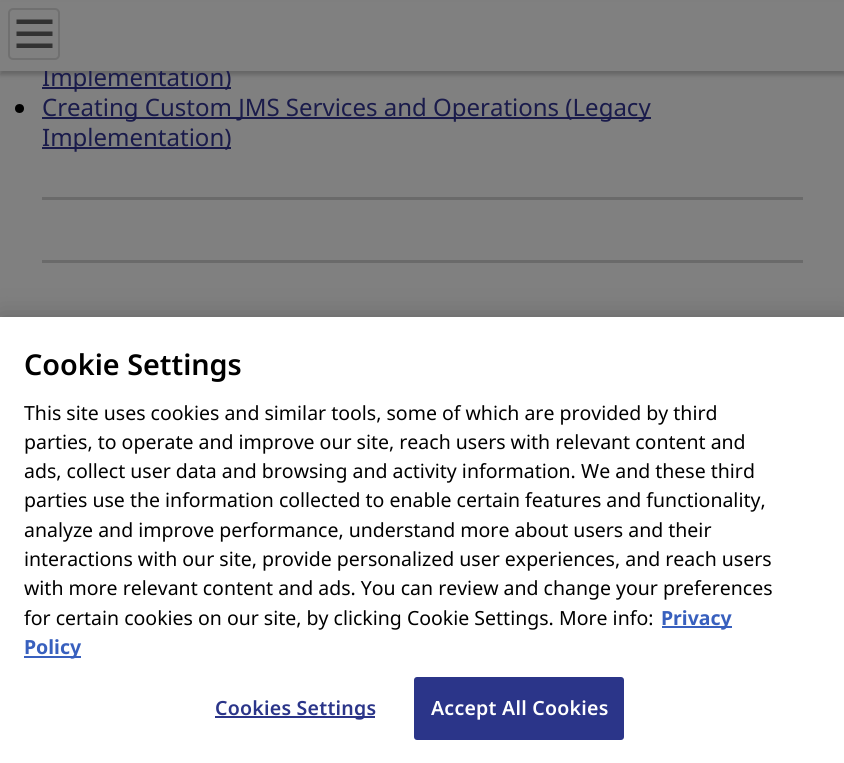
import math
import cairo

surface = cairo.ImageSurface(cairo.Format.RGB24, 844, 763)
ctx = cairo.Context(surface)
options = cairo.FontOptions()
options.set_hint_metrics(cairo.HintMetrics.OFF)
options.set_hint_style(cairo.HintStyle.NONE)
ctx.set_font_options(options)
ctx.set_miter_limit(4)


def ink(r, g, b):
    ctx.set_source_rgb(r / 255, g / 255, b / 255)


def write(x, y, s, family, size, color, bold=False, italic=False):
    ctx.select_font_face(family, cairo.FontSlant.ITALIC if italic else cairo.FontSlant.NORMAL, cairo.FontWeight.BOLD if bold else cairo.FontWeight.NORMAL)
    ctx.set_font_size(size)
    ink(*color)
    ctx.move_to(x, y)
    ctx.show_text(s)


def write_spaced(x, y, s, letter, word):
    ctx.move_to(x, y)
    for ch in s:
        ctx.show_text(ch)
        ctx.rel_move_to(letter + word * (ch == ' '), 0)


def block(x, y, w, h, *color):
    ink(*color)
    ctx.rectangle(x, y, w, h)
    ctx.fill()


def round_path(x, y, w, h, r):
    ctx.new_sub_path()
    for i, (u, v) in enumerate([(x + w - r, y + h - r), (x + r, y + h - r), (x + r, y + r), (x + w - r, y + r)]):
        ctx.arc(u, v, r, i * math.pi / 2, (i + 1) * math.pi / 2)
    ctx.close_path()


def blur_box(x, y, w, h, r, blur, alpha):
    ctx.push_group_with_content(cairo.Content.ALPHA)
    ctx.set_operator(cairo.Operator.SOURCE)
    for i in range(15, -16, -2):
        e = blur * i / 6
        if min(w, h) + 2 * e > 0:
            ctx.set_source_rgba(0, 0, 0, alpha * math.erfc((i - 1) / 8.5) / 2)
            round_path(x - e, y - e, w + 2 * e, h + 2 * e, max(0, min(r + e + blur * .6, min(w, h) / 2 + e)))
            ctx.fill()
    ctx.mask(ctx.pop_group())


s1 = dict(family="Noto Sans", size=24, color=(26, 27, 75))
s2 = dict(family="Noto Sans SemiBold", size=28.75, color=(0, 0, 0))
s3 = dict(family="Noto Sans", size=19.5, color=(0, 0, 0))
s4 = dict(family="Noto Sans", size=19.5, color=(56, 96, 190), bold=True)

ink(128, 128, 128)
ctx.paint()
ink(102, 102, 102)
blur_box(0, 5, 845, 70, 0, 2, 1)
block(42, 87, 189, 2, 26, 27, 75)
write(42, 86, "Implementation)", **s1)
block(0, 2, 844, 69, 128, 128, 128)
round_path(9, 9, 50, 50, 4)
ink(112, 112, 112)
ctx.stroke()
ink(50, 50, 50)
ctx.set_fill_rule(cairo.FillRule.EVEN_ODD)
ctx.new_path()
ctx.move_to(16.5, 24)
ctx.line_to(52.5, 24)
ctx.line_to(52.5, 19.5)
ctx.line_to(16.5, 19.5)
ctx.close_path()
ctx.move_to(16.5, 36)
ctx.line_to(52.5, 36)
ctx.line_to(52.5, 31.5)
ctx.line_to(16.5, 31.5)
ctx.close_path()
ctx.move_to(16.5, 48)
ctx.line_to(52.5, 48)
ctx.line_to(52.5, 43.5)
ctx.line_to(16.5, 43.5)
ctx.close_path()
ctx.fill()
ink(0, 0, 0)
ctx.arc(19.5, 108.5, 4.5, 0, 2 * math.pi)
ctx.fill()
block(42, 117, 609, 2, 26, 27, 75)
write(42, 116, "Creating Custom JMS Services and Operations (Legacy", **s1)
block(42, 147, 189, 2, 26, 27, 75)
write(42, 146, "Implementation)", **s1)
block(42, 197, 761, 3, 106, 106, 106)
block(42, 260, 761, 3, 106, 106, 106)
ink(0, 0, 0)
blur_box(0, 317, 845, 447, 0, 13.5, 0.2)
block(0, 317, 844, 446, 255, 255, 255)
write(24, 375, "Cookie Settings", **s2)
write(24, 420, "This site uses cookies and similar tools, some of which are provided by third", **s3)
write(24, 449, "parties, to operate and improve our site, reach users with relevant content and", **s3)
write(24, 478, "ads, collect user data and browsing and activity information.", **s3)
write(581, 478, "We and these third", **s3)
write(24, 507, "parties use the information collected to enable certain features and functionality,", **s3)
write(24, 537, "analyze and improve performance, understand more about users and their", **s3)
write(24, 566, "interactions with our site, provide personalized user experiences, and reach users", **s3)
write(24, 595, "with more relevant content and ads. You can review and change your preferences", **s3)
write(24, 625, "for certain cookies on our site, by clicking Cookie Settings.", **s3)
write(559, 625, "More info:", **s3)
block(662, 626, 70, 2, 56, 96, 190)
write(661, 625, "Privacy", **s4)
block(24, 656, 57, 2, 56, 96, 190)
write(24, 654, "Policy", **s4)
block(215, 716, 160, 2, 43, 53, 137)
ctx.select_font_face("Noto Sans SemiBold")
write_spaced(215, 715, "Cookies Settings", 0.25, 0)
round_path(415, 678, 208, 61, 2)
ctx.fill_preserve()
ctx.stroke()
ink(255, 255, 255)
write_spaced(431, 715, "Accept All Cookies", 0.25, 0)
surface.write_to_png("screenshot.png")
